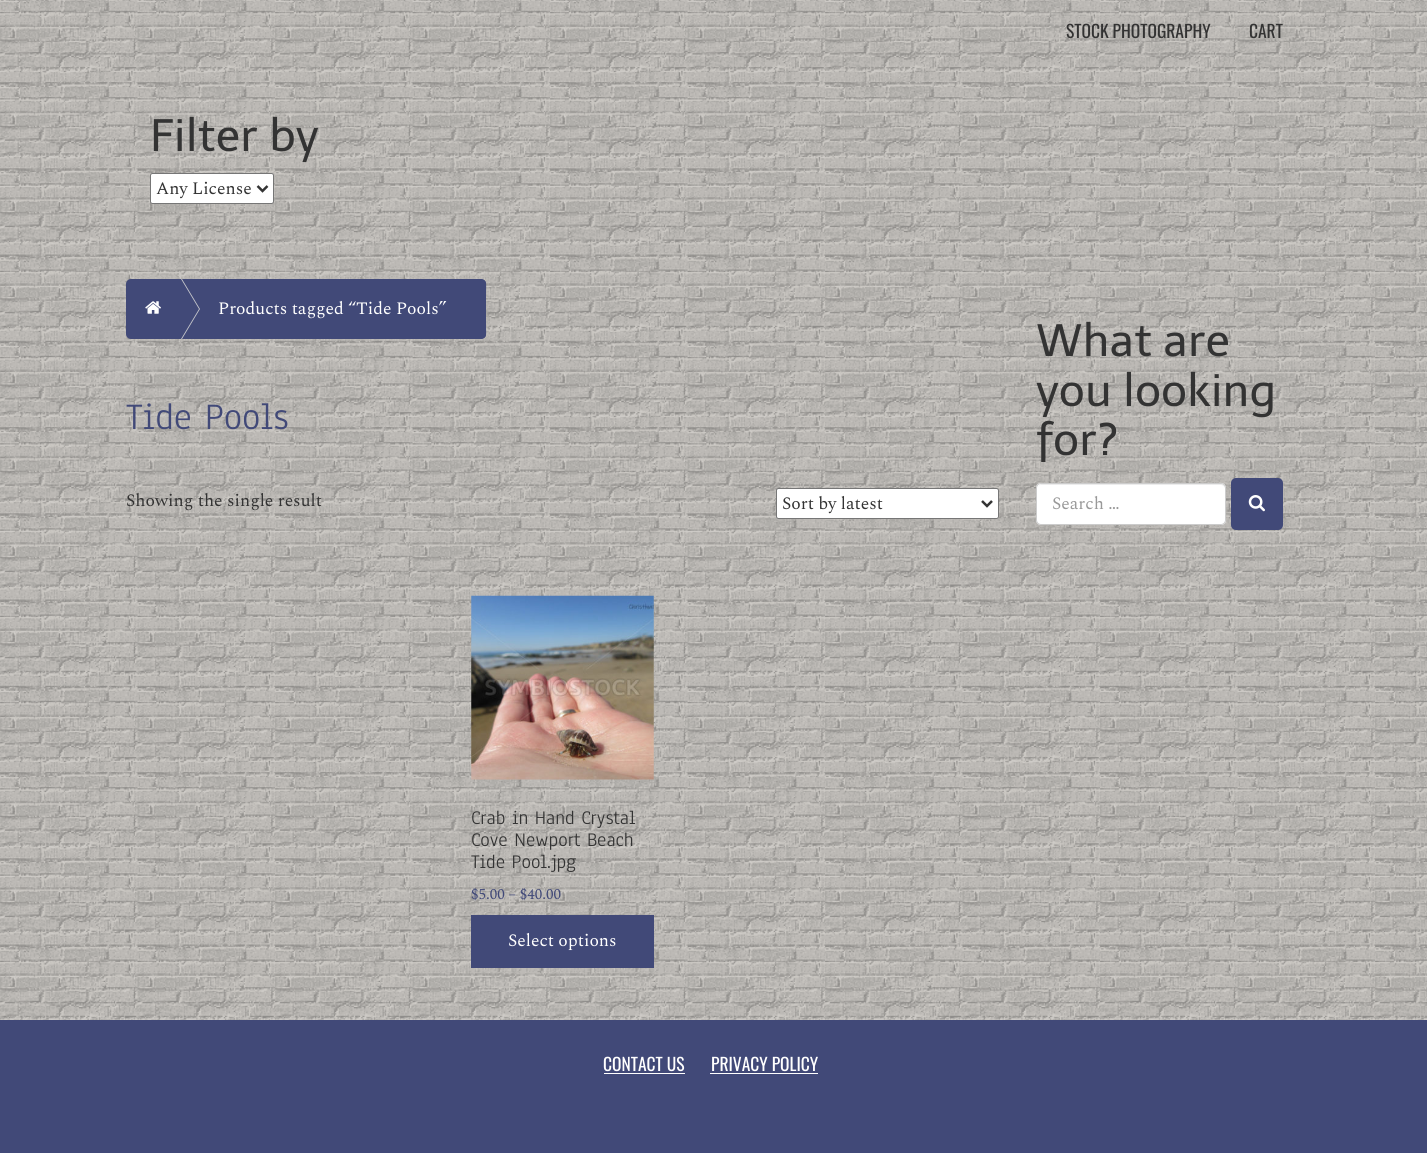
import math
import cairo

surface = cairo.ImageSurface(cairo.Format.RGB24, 1427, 1153)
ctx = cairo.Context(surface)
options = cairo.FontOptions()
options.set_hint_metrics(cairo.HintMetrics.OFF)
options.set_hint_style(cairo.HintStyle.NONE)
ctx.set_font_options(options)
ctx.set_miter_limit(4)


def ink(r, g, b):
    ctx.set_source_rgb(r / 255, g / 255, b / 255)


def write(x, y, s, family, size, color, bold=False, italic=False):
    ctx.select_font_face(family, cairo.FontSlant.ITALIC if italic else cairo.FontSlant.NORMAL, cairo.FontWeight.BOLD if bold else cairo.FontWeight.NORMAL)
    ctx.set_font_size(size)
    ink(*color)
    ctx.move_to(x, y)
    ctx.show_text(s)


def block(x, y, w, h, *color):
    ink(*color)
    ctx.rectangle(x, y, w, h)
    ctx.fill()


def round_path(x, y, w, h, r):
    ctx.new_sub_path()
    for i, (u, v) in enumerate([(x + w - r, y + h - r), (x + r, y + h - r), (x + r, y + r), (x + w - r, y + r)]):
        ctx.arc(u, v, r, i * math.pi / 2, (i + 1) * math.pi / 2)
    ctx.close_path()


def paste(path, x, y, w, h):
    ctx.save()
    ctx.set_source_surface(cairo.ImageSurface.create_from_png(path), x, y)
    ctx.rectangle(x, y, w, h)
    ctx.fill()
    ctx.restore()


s1 = dict(family="Oswald", size=17.5, color=(51, 51, 51))
s2 = dict(family="Telex", size=45, color=(51, 51, 51))
s3 = dict(family="Spectral", size=17.5, color=(51, 51, 51))
s4 = dict(family="Spectral", size=17.5, color=(255, 255, 255))
s5 = dict(family="Anaheim", size=38.75, color=(65, 73, 120))
s6 = dict(family="Anaheim", size=20, color=(51, 51, 51))
s7 = dict(family="Spectral", size=15, color=(65, 73, 120))
s8 = dict(family="Spectral", size=17.5, color=(153, 153, 153))
s9 = dict(family="Oswald", size=17.5, color=(255, 255, 255))

ink(249, 245, 239)
ctx.paint()
paste("pic1.png", 0, 0, 1427, 1020)
write(1066, 38, "STOCK PHOTOGRAPHY", **s1)
write(1249, 38, "CART", **s1)
write(150, 151, "Filter by", **s2)
ink(255, 255, 255)
round_path(150.5, 173.5, 123, 30, 2)
ctx.fill_preserve()
ink(118, 118, 118)
ctx.set_line_width(1)
ctx.stroke()
ctx.new_path()
ctx.move_to(257.5, 186)
ctx.line_to(262.5, 191)
ctx.line_to(267.5, 186)
ink(51, 51, 51)
ctx.set_line_width(2.5)
ctx.stroke()
write(156, 194, "Any License", **s3)
ink(65, 73, 120)
round_path(126, 279, 360, 60, 5)
ctx.fill()
ink(197, 198, 203)
ctx.new_path()
ctx.move_to(182, 279)
ctx.line_to(200, 309)
ctx.line_to(182, 339)
ctx.line_to(162, 339)
ctx.line_to(162, 279)
ctx.close_path()
ctx.fill()
ink(65, 73, 120)
ctx.new_path()
ctx.move_to(181, 279)
ctx.line_to(199, 309)
ctx.line_to(181, 339)
ctx.line_to(161, 339)
ctx.line_to(161, 279)
ctx.close_path()
ctx.fill()
paste("pic2.png", 145, 301, 16, 13)
write(218, 314, "Products tagged “Tide Pools”", **s4)
ink(65, 73, 120)
ctx.new_path()
ctx.move_to(478, 339)
ctx.line_to(478, 279)
ctx.curve_to(488, 279, 486, 283, 486, 292)
ctx.line_to(486, 326)
ctx.curve_to(486, 335, 488, 339, 478, 339)
ctx.close_path()
ctx.fill()
write(126, 429, "Tide Pools", **s5)
write(126, 506, "Showing the single result", **s3)
ink(255, 255, 255)
round_path(776.5, 488.5, 222, 30, 2)
ctx.fill_preserve()
ink(118, 118, 118)
ctx.set_line_width(1)
ctx.stroke()
ctx.new_path()
ctx.move_to(982, 501)
ctx.line_to(987, 506)
ctx.line_to(992, 501)
ink(51, 51, 51)
ctx.set_line_width(2.5)
ctx.stroke()
write(782, 509, "Sort by latest", **s3)
paste("pic3.png", 471, 595, 183, 185)
write(471, 824, "Crab in Hand Crystal", **s6)
write(471, 846, "Cove Newport Beach", **s6)
write(471, 868, "Tide Pool.jpg", **s6)
write(471, 899, "$5.00 – $40.00", **s7)
block(471, 915, 183, 53, 65, 73, 120)
write(508, 946, "Select options", **s4)
write(1036, 356, "What are", **s2)
write(1036, 406, "you looking", **s2)
write(1036, 455, "for?", **s2)
ink(255, 255, 255)
round_path(1036, 483, 190, 42, 5)
ctx.fill()
ink(236, 236, 236)
ctx.new_path()
ctx.move_to(1041, 485)
ctx.line_to(1221, 485)
ctx.curve_to(1223, 485, 1225, 487, 1225, 489)
ctx.curve_to(1225, 486, 1224, 484, 1221, 484)
ctx.line_to(1041, 484)
ctx.curve_to(1039, 485, 1038, 487, 1038, 489)
ctx.curve_to(1038, 487, 1039, 485, 1041, 485)
ctx.close_path()
ctx.fill()
round_path(1036.5, 483.5, 189, 41, 4.5)
ink(204, 204, 204)
ctx.set_line_width(1)
ctx.stroke()
write(1052, 509, "Search …", **s8)
ink(65, 73, 120)
round_path(1231, 478, 52, 52, 5)
ctx.fill()
paste("pic4.png", 1248, 495, 17, 17)
block(0, 1020, 1427, 133, 65, 73, 120)
write(603, 1071, "CONTACT US", **s9)
block(604, 1073, 81, 1, 255, 255, 255)
write(711, 1071, "PRIVACY POLICY", **s9)
block(710, 1073, 108, 1, 255, 255, 255)
surface.write_to_png("screenshot.png")
